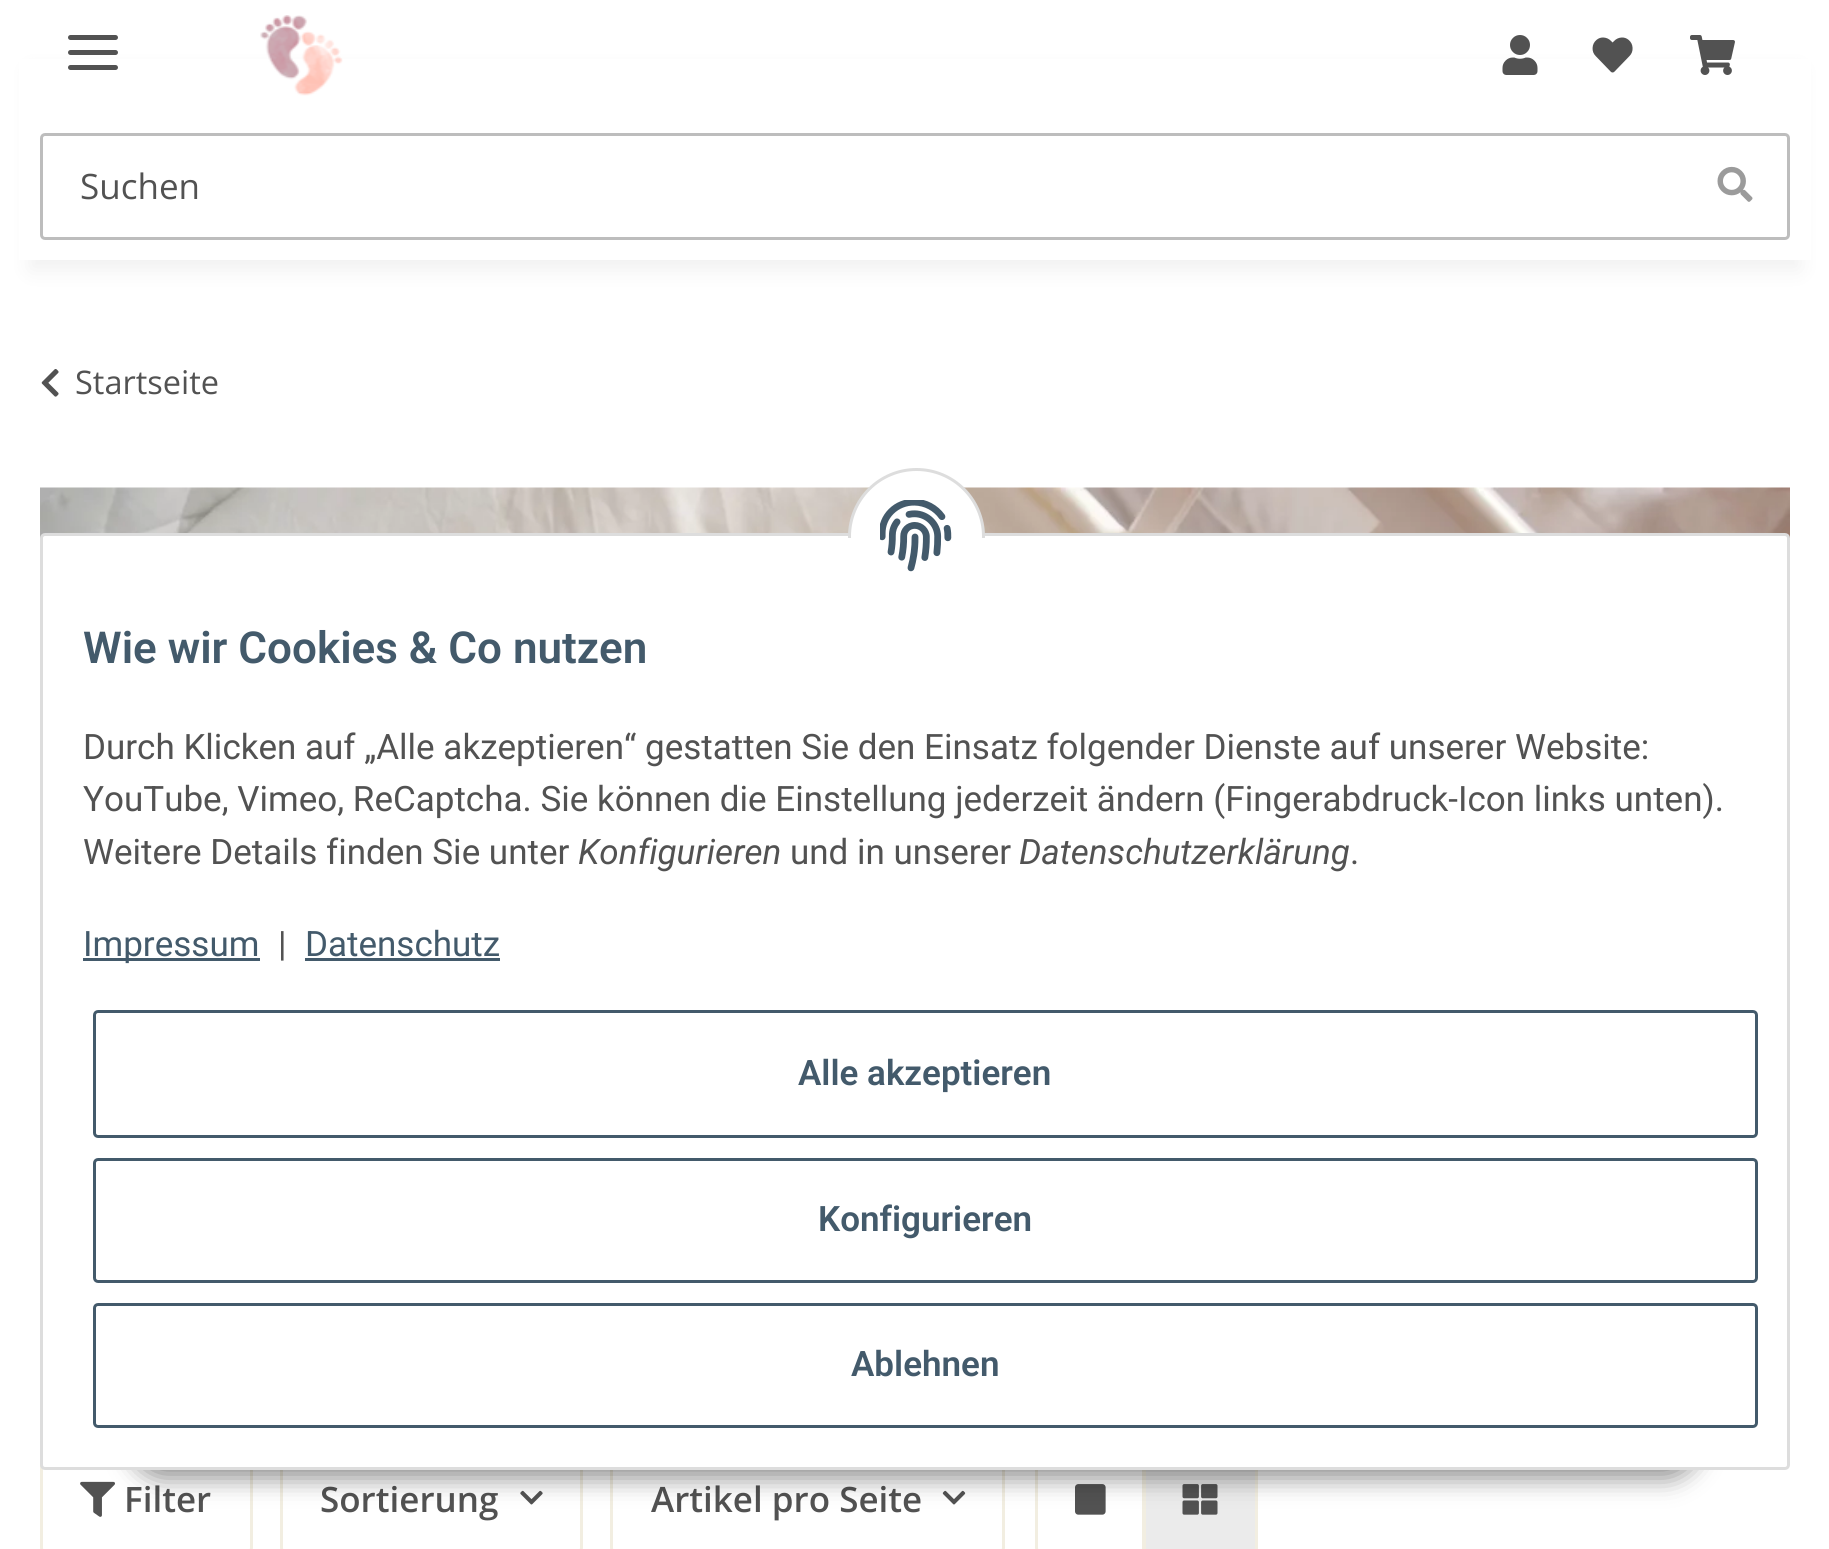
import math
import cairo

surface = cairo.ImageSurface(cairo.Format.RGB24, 1829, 1549)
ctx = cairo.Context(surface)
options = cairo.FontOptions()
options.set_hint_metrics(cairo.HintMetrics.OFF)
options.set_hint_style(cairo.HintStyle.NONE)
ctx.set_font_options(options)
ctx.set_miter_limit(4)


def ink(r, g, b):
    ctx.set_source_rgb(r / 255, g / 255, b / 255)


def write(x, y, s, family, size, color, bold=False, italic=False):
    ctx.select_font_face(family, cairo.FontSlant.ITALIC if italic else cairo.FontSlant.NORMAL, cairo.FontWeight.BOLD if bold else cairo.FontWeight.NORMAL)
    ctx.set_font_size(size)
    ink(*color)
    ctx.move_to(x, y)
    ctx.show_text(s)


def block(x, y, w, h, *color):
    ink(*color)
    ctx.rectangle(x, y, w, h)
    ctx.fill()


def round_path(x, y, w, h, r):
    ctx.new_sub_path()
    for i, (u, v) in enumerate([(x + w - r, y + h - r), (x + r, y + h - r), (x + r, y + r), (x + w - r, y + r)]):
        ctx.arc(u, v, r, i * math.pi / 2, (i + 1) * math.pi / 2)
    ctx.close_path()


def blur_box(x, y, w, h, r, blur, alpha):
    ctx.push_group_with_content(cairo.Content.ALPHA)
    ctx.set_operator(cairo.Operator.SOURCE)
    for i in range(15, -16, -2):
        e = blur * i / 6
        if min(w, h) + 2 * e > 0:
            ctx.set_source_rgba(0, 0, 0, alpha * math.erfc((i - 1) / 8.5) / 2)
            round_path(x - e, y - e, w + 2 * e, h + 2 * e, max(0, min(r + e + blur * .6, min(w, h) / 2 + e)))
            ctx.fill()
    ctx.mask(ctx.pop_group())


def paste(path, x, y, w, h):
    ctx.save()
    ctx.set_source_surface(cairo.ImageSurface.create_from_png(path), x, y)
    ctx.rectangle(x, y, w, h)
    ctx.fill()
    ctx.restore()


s1 = dict(family="Open Sans", size=35, color=(82, 82, 82))
s2 = dict(family="Open Sans", size=32.5, color=(82, 82, 82))
s3 = dict(family="Open Sans SemiBold", size=35, color=(82, 82, 82))
s4 = dict(family="Roboto SemiBold", size=44, color=(67, 90, 107))
s5 = dict(family="Roboto", size=35, color=(82, 82, 82))
s6 = dict(family="Roboto", size=35, color=(82, 82, 82), italic=True)
s7 = dict(family="Roboto", size=35, color=(67, 90, 107))
s8 = dict(family="Roboto SemiBold", size=35, color=(67, 90, 107))

ink(255, 255, 255)
ctx.paint()
ink(0, 0, 0)
blur_box(30, 70, 1770, 200, 0, 11, 0.06)
block(19, 59, 1792, 201, 255, 255, 255)
ink(82, 82, 82)
round_path(68, 50, 50, 5, 2.5)
ctx.fill()
round_path(68, 35, 50, 5, 2.5)
ctx.fill()
round_path(68, 65, 50, 5, 2.5)
ctx.fill()
paste("pic1.png", 260, 15, 83, 81)
paste("pic2.png", 1502, 35, 36, 40)
paste("pic3.png", 1592, 37, 41, 36)
paste("pic4.png", 1690, 35, 45, 40)
round_path(41.5, 134.5, 1747, 104, 3.5)
ink(189, 189, 189)
ctx.set_line_width(3)
ctx.stroke()
write(80, 199, "Suchen", **s1)
paste("pic5.png", 1717, 166, 36, 36)
paste("pic6.png", 41, 369, 18, 28)
write(75, 394, "Startseite", **s2)
paste("pic7.png", 40, 487, 1750, 51)
round_path(41.5, 1446.5, 210, 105, 3.5)
ink(242, 238, 225)
ctx.stroke()
paste("pic8.png", 80, 1481, 35, 36)
write(124, 1512, "Filter", **s3)
round_path(281.5, 1446.5, 300, 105, 3.5)
ink(242, 238, 225)
ctx.stroke()
write(320, 1512, "Sortierung", **s3)
paste("pic9.png", 520, 1490, 23, 15)
round_path(611.5, 1446.5, 392, 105, 3.5)
ink(242, 238, 225)
ctx.stroke()
write(651, 1512, "Artikel pro Seite", **s3)
paste("pic10.png", 942, 1490, 24, 15)
ctx.new_path()
ctx.move_to(1040, 1446.5)
ctx.line_to(1143.5, 1446.5)
ctx.line_to(1143.5, 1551.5)
ctx.line_to(1040, 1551.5)
ctx.curve_to(1038, 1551.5, 1036.5, 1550, 1036.5, 1548)
ctx.line_to(1036.5, 1450)
ctx.curve_to(1036.5, 1448, 1038, 1446.5, 1040, 1446.5)
ctx.close_path()
ink(242, 238, 225)
ctx.stroke()
paste("pic11.png", 1075, 1484, 31, 31)
block(1146, 1470, 112, 79, 235, 235, 235)
ctx.new_path()
ctx.move_to(1144.5, 1446.5)
ctx.line_to(1253, 1446.5)
ctx.curve_to(1255, 1446.5, 1256.5, 1448, 1256.5, 1450)
ctx.line_to(1256.5, 1548)
ctx.curve_to(1256.5, 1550, 1255, 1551.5, 1253, 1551.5)
ctx.line_to(1144.5, 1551.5)
ctx.close_path()
ink(242, 238, 225)
ctx.stroke()
paste("pic12.png", 1182, 1484, 36, 31)
ink(0, 0, 0)
blur_box(130, 1398, 1570, 80, 40, 12.5, 0.45)
ink(255, 255, 255)
round_path(41.5, 534.5, 1747, 934, 3.5)
ctx.fill_preserve()
ink(221, 221, 221)
ctx.stroke()
ink(255, 255, 255)
ctx.arc(916.5, 536.5, 67, 0, 2 * math.pi)
ctx.fill_preserve()
ink(221, 221, 221)
ctx.stroke()
block(848, 538, 137, 67, 255, 255, 255)
paste("pic13.png", 880, 500, 72, 72)
write(83, 663, "Wie wir Cookies & Co nutzen", **s4)
write(83, 759, "Durch Klicken auf „Alle akzeptieren“ gestatten Sie den Einsatz folgender Dienste auf unserer Website:", **s5)
write(83, 811, "YouTube, Vimeo, ReCaptcha. Sie können die Einstellung jederzeit ändern (Fingerabdruck-Icon links unten).", **s5)
write(83, 864, "Weitere Details finden Sie unter", **s5)
write(578, 864, "Konfigurieren", **s6)
write(790, 864, "und in unserer", **s5)
write(1019, 864, "Datenschutzerklärung", **s6)
write(1350, 864, ".", **s5)
block(83, 958, 177, 3, 67, 90, 107)
write(83, 956, "Impressum", **s7)
write(278, 956, "|", **s5)
write(305, 956, "Datenschutz", **s7)
block(305, 958, 195, 3, 67, 90, 107)
round_path(94.5, 1011.5, 1662, 125, 3.5)
ctx.stroke()
write(798, 1085, "Alle akzeptieren", **s8)
round_path(94.5, 1159.5, 1662, 122, 3.5)
ctx.stroke()
write(818, 1231, "Konfigurieren", **s8)
round_path(94.5, 1304.5, 1662, 122, 3.5)
ctx.stroke()
write(851, 1376, "Ablehnen", **s8)
surface.write_to_png("screenshot.png")
